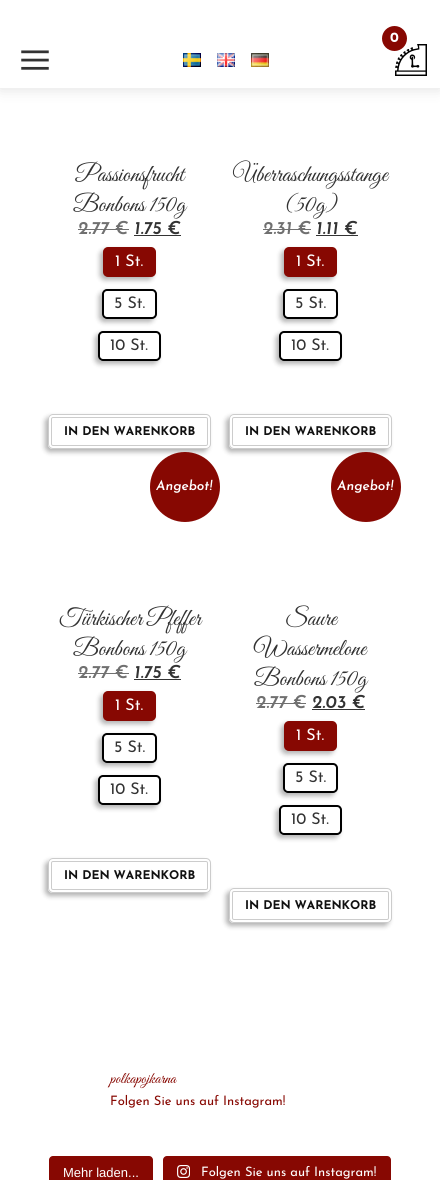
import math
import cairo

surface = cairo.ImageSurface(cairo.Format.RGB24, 440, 1180)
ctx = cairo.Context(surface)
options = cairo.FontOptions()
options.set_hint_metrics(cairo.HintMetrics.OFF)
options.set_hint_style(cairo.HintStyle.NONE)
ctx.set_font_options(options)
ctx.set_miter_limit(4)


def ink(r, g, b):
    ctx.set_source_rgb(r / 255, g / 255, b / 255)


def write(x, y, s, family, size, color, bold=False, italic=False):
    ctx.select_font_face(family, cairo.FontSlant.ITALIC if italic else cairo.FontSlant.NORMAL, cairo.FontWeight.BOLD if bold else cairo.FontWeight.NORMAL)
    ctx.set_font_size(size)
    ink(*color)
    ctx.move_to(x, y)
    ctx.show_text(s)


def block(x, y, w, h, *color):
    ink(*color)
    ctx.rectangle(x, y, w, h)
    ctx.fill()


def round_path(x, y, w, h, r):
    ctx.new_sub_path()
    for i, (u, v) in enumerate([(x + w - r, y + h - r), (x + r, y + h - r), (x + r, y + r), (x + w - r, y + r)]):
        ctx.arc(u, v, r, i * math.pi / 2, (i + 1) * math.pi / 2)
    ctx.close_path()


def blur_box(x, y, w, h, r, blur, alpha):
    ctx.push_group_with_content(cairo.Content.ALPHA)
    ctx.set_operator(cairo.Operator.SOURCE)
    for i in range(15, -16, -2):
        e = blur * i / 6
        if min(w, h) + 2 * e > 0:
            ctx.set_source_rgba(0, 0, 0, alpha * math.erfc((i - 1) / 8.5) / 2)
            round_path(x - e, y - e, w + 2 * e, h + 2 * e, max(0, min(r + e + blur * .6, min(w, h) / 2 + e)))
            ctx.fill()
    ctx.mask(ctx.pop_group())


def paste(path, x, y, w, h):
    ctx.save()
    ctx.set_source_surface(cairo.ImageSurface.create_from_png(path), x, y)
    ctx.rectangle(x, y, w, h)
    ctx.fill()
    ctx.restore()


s1 = dict(family="Josefin Sans", size=14, color=(255, 255, 255), bold=True)
s2 = dict(family="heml", size=44, color=(51, 51, 51))
s3 = dict(family="Great Vibes", size=24, color=(51, 51, 51))
s4 = dict(family="Josefin Sans SemiBold", size=18, color=(112, 112, 112), italic=True)
s5 = dict(family="Josefin Sans SemiBold", size=18, color=(51, 51, 51), italic=True)
s6 = dict(family="Josefin Sans", size=16, color=(255, 255, 255))
s7 = dict(family="Josefin Sans", size=16, color=(51, 51, 51))
s8 = dict(family="Josefin Sans", size=12, color=(17, 17, 17), bold=True)
s9 = dict(family="Josefin Sans SemiBold", size=13.5, color=(255, 255, 255), italic=True)
s10 = dict(family="Great Vibes", size=16, color=(135, 8, 2))
s11 = dict(family="Josefin Sans", size=13, color=(135, 8, 2))
s12 = dict(family="Liberation Sans", size=13, color=(255, 255, 255))
s13 = dict(family="Josefin Sans", size=13, color=(255, 255, 255))

ink(255, 255, 255)
ctx.paint()
ink(0, 0, 0)
blur_box(0, 1, 440, 88, 0, 7.5, 0.12)
block(0, 0, 440, 88, 255, 255, 255)
paste("pic1.png", 395, 44, 32, 32)
ink(135, 8, 2)
ctx.arc(394.5, 38.5, 12.5, 0, 2 * math.pi)
ctx.fill()
write(390, 42, "0", **s1)
write(13, 82, "m", **s2)
paste("pic2.png", 183, 53, 18, 14)
paste("pic3.png", 217, 53, 18, 14)
paste("pic4.png", 251, 53, 18, 14)
write(75, 181, "Passionsfrucht", **s3)
write(73, 211, "Bonbons 150g", **s3)
write(78, 234, "2.77 €", **s4)
block(78, 229, 51, 1, 112, 112, 112)
write(134, 234, "1.75 €", **s5)
block(134, 235, 47, 1, 51, 51, 51)
ink(0, 0, 0)
blur_box(100, 250, 53, 30, 5, 2.5, 0.3)
ink(135, 8, 2)
round_path(104, 248, 51, 28, 4)
ctx.fill_preserve()
ctx.stroke()
write(115, 266, "1 St.", **s6)
ctx.save()
ctx.set_fill_rule(cairo.FillRule.EVEN_ODD)
ctx.new_path()
ctx.move_to(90, 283)
ctx.line_to(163, 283)
ctx.line_to(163, 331)
ctx.line_to(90, 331)
ctx.close_path()
ctx.move_to(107, 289)
ctx.line_to(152, 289)
ctx.curve_to(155, 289, 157, 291, 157, 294)
ctx.line_to(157, 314)
ctx.curve_to(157, 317, 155, 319, 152, 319)
ctx.line_to(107, 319)
ctx.curve_to(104, 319, 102, 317, 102, 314)
ctx.line_to(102, 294)
ctx.curve_to(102, 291, 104, 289, 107, 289)
ctx.close_path()
ctx.clip()
ink(0, 0, 0)
blur_box(99, 292, 55, 30, 5, 2.5, 0.3)
ctx.restore()
round_path(103, 290, 53, 28, 4)
ink(0, 0, 0)
ctx.stroke()
write(114, 308, "5 St.", **s7)
ctx.save()
ctx.set_fill_rule(cairo.FillRule.EVEN_ODD)
ctx.new_path()
ctx.move_to(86, 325)
ctx.line_to(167, 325)
ctx.line_to(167, 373)
ctx.line_to(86, 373)
ctx.close_path()
ctx.move_to(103, 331)
ctx.line_to(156, 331)
ctx.curve_to(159, 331, 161, 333, 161, 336)
ctx.line_to(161, 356)
ctx.curve_to(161, 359, 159, 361, 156, 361)
ctx.line_to(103, 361)
ctx.curve_to(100, 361, 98, 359, 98, 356)
ctx.line_to(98, 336)
ctx.curve_to(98, 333, 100, 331, 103, 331)
ctx.close_path()
ctx.clip()
ink(0, 0, 0)
blur_box(95, 334, 63, 30, 5, 2.5, 0.3)
ctx.restore()
round_path(99, 332, 61, 28, 4)
ink(0, 0, 0)
ctx.stroke()
write(110, 350, "10 St.", **s7)
ctx.save()
ctx.set_fill_rule(cairo.FillRule.EVEN_ODD)
ctx.new_path()
ctx.move_to(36, 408)
ctx.line_to(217, 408)
ctx.line_to(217, 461)
ctx.line_to(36, 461)
ctx.close_path()
ctx.move_to(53, 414)
ctx.line_to(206, 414)
ctx.curve_to(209, 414, 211, 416, 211, 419)
ctx.line_to(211, 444)
ctx.curve_to(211, 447, 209, 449, 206, 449)
ctx.line_to(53, 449)
ctx.curve_to(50, 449, 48, 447, 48, 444)
ctx.line_to(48, 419)
ctx.curve_to(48, 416, 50, 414, 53, 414)
ctx.close_path()
ctx.clip()
ink(0, 0, 0)
blur_box(45, 417, 163, 35, 5, 2.5, 0.3)
ctx.restore()
round_path(48.5, 414.5, 162, 34, 4.5)
ink(204, 204, 204)
ctx.set_line_width(1)
ctx.stroke()
round_path(51.5, 417.5, 156, 28, 1.5)
ctx.stroke()
write(64, 435, "IN DEN WARENKORB", **s8)
write(233, 181, "Überraschungsstange", **s3)
write(283, 211, "(50g)", **s3)
write(263, 234, "2.31 €", **s4)
block(263, 229, 48, 1, 112, 112, 112)
write(316, 234, "1.11 €", **s5)
block(316, 235, 42, 1, 51, 51, 51)
ink(0, 0, 0)
blur_box(281, 250, 53, 30, 5, 2.5, 0.3)
ink(135, 8, 2)
round_path(285, 248, 51, 28, 4)
ctx.fill_preserve()
ctx.set_line_width(2)
ctx.stroke()
write(296, 266, "1 St.", **s6)
ctx.save()
ctx.set_fill_rule(cairo.FillRule.EVEN_ODD)
ctx.new_path()
ctx.move_to(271, 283)
ctx.line_to(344, 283)
ctx.line_to(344, 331)
ctx.line_to(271, 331)
ctx.close_path()
ctx.move_to(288, 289)
ctx.line_to(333, 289)
ctx.curve_to(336, 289, 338, 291, 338, 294)
ctx.line_to(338, 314)
ctx.curve_to(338, 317, 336, 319, 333, 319)
ctx.line_to(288, 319)
ctx.curve_to(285, 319, 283, 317, 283, 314)
ctx.line_to(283, 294)
ctx.curve_to(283, 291, 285, 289, 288, 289)
ctx.close_path()
ctx.clip()
ink(0, 0, 0)
blur_box(280, 292, 55, 30, 5, 2.5, 0.3)
ctx.restore()
round_path(284, 290, 53, 28, 4)
ink(0, 0, 0)
ctx.stroke()
write(295, 308, "5 St.", **s7)
ctx.save()
ctx.set_fill_rule(cairo.FillRule.EVEN_ODD)
ctx.new_path()
ctx.move_to(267, 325)
ctx.line_to(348, 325)
ctx.line_to(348, 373)
ctx.line_to(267, 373)
ctx.close_path()
ctx.move_to(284, 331)
ctx.line_to(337, 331)
ctx.curve_to(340, 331, 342, 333, 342, 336)
ctx.line_to(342, 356)
ctx.curve_to(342, 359, 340, 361, 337, 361)
ctx.line_to(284, 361)
ctx.curve_to(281, 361, 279, 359, 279, 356)
ctx.line_to(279, 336)
ctx.curve_to(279, 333, 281, 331, 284, 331)
ctx.close_path()
ctx.clip()
ink(0, 0, 0)
blur_box(276, 334, 63, 30, 5, 2.5, 0.3)
ctx.restore()
round_path(280, 332, 61, 28, 4)
ink(0, 0, 0)
ctx.stroke()
write(291, 350, "10 St.", **s7)
ctx.save()
ctx.set_fill_rule(cairo.FillRule.EVEN_ODD)
ctx.new_path()
ctx.move_to(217, 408)
ctx.line_to(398, 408)
ctx.line_to(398, 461)
ctx.line_to(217, 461)
ctx.close_path()
ctx.move_to(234, 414)
ctx.line_to(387, 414)
ctx.curve_to(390, 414, 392, 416, 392, 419)
ctx.line_to(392, 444)
ctx.curve_to(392, 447, 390, 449, 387, 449)
ctx.line_to(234, 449)
ctx.curve_to(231, 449, 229, 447, 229, 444)
ctx.line_to(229, 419)
ctx.curve_to(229, 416, 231, 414, 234, 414)
ctx.close_path()
ctx.clip()
ink(0, 0, 0)
blur_box(226, 417, 163, 35, 5, 2.5, 0.3)
ctx.restore()
round_path(229.5, 414.5, 162, 34, 4.5)
ink(204, 204, 204)
ctx.set_line_width(1)
ctx.stroke()
round_path(232.5, 417.5, 156, 28, 1.5)
ctx.stroke()
write(245, 435, "IN DEN WARENKORB", **s8)
ink(135, 8, 2)
ctx.new_path()
ctx.arc(185, 487, 35, 0, 2 * math.pi)
ctx.fill()
write(156, 490, "Angebot!", **s9)
write(59, 625, "Türkischer Pfeffer", **s3)
write(73, 655, "Bonbons 150g", **s3)
write(78, 678, "2.77 €", **s4)
block(78, 673, 51, 1, 112, 112, 112)
write(134, 678, "1.75 €", **s5)
block(134, 679, 47, 1, 51, 51, 51)
ink(0, 0, 0)
blur_box(100, 694, 53, 30, 5, 2.5, 0.3)
ink(135, 8, 2)
round_path(104, 692, 51, 28, 4)
ctx.fill_preserve()
ctx.set_line_width(2)
ctx.stroke()
write(115, 710, "1 St.", **s6)
ctx.save()
ctx.set_fill_rule(cairo.FillRule.EVEN_ODD)
ctx.new_path()
ctx.move_to(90, 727)
ctx.line_to(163, 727)
ctx.line_to(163, 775)
ctx.line_to(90, 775)
ctx.close_path()
ctx.move_to(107, 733)
ctx.line_to(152, 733)
ctx.curve_to(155, 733, 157, 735, 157, 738)
ctx.line_to(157, 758)
ctx.curve_to(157, 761, 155, 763, 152, 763)
ctx.line_to(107, 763)
ctx.curve_to(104, 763, 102, 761, 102, 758)
ctx.line_to(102, 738)
ctx.curve_to(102, 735, 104, 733, 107, 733)
ctx.close_path()
ctx.clip()
ink(0, 0, 0)
blur_box(99, 736, 55, 30, 5, 2.5, 0.3)
ctx.restore()
round_path(103, 734, 53, 28, 4)
ink(0, 0, 0)
ctx.stroke()
write(114, 752, "5 St.", **s7)
ctx.save()
ctx.set_fill_rule(cairo.FillRule.EVEN_ODD)
ctx.new_path()
ctx.move_to(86, 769)
ctx.line_to(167, 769)
ctx.line_to(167, 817)
ctx.line_to(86, 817)
ctx.close_path()
ctx.move_to(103, 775)
ctx.line_to(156, 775)
ctx.curve_to(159, 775, 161, 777, 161, 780)
ctx.line_to(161, 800)
ctx.curve_to(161, 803, 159, 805, 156, 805)
ctx.line_to(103, 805)
ctx.curve_to(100, 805, 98, 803, 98, 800)
ctx.line_to(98, 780)
ctx.curve_to(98, 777, 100, 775, 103, 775)
ctx.close_path()
ctx.clip()
ink(0, 0, 0)
blur_box(95, 778, 63, 30, 5, 2.5, 0.3)
ctx.restore()
round_path(99, 776, 61, 28, 4)
ink(0, 0, 0)
ctx.stroke()
write(110, 794, "10 St.", **s7)
ctx.save()
ctx.set_fill_rule(cairo.FillRule.EVEN_ODD)
ctx.new_path()
ctx.move_to(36, 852)
ctx.line_to(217, 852)
ctx.line_to(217, 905)
ctx.line_to(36, 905)
ctx.close_path()
ctx.move_to(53, 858)
ctx.line_to(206, 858)
ctx.curve_to(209, 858, 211, 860, 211, 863)
ctx.line_to(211, 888)
ctx.curve_to(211, 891, 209, 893, 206, 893)
ctx.line_to(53, 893)
ctx.curve_to(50, 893, 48, 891, 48, 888)
ctx.line_to(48, 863)
ctx.curve_to(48, 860, 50, 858, 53, 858)
ctx.close_path()
ctx.clip()
ink(0, 0, 0)
blur_box(45, 861, 163, 35, 5, 2.5, 0.3)
ctx.restore()
round_path(48.5, 858.5, 162, 34, 4.5)
ink(204, 204, 204)
ctx.set_line_width(1)
ctx.stroke()
round_path(51.5, 861.5, 156, 28, 1.5)
ctx.stroke()
write(64, 879, "IN DEN WARENKORB", **s8)
ink(135, 8, 2)
ctx.new_path()
ctx.arc(366, 487, 35, 0, 2 * math.pi)
ctx.fill()
write(337, 490, "Angebot!", **s9)
write(285, 625, "Saure", **s3)
write(254, 655, "Wassermelone", **s3)
write(254, 685, "Bonbons 150g", **s3)
write(256, 708, "2.77 €", **s4)
block(256, 703, 50, 1, 112, 112, 112)
write(312, 708, "2.03 €", **s5)
block(312, 709, 53, 1, 51, 51, 51)
ink(0, 0, 0)
blur_box(281, 724, 53, 30, 5, 2.5, 0.3)
ink(135, 8, 2)
round_path(285, 722, 51, 28, 4)
ctx.fill_preserve()
ctx.set_line_width(2)
ctx.stroke()
write(296, 740, "1 St.", **s6)
ctx.save()
ctx.set_fill_rule(cairo.FillRule.EVEN_ODD)
ctx.new_path()
ctx.move_to(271, 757)
ctx.line_to(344, 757)
ctx.line_to(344, 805)
ctx.line_to(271, 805)
ctx.close_path()
ctx.move_to(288, 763)
ctx.line_to(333, 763)
ctx.curve_to(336, 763, 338, 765, 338, 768)
ctx.line_to(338, 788)
ctx.curve_to(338, 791, 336, 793, 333, 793)
ctx.line_to(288, 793)
ctx.curve_to(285, 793, 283, 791, 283, 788)
ctx.line_to(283, 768)
ctx.curve_to(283, 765, 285, 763, 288, 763)
ctx.close_path()
ctx.clip()
ink(0, 0, 0)
blur_box(280, 766, 55, 30, 5, 2.5, 0.3)
ctx.restore()
round_path(284, 764, 53, 28, 4)
ink(0, 0, 0)
ctx.stroke()
write(295, 782, "5 St.", **s7)
ctx.save()
ctx.set_fill_rule(cairo.FillRule.EVEN_ODD)
ctx.new_path()
ctx.move_to(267, 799)
ctx.line_to(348, 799)
ctx.line_to(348, 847)
ctx.line_to(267, 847)
ctx.close_path()
ctx.move_to(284, 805)
ctx.line_to(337, 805)
ctx.curve_to(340, 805, 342, 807, 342, 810)
ctx.line_to(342, 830)
ctx.curve_to(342, 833, 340, 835, 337, 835)
ctx.line_to(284, 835)
ctx.curve_to(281, 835, 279, 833, 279, 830)
ctx.line_to(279, 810)
ctx.curve_to(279, 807, 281, 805, 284, 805)
ctx.close_path()
ctx.clip()
ink(0, 0, 0)
blur_box(276, 808, 63, 30, 5, 2.5, 0.3)
ctx.restore()
round_path(280, 806, 61, 28, 4)
ink(0, 0, 0)
ctx.stroke()
write(291, 824, "10 St.", **s7)
ctx.save()
ctx.set_fill_rule(cairo.FillRule.EVEN_ODD)
ctx.new_path()
ctx.move_to(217, 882)
ctx.line_to(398, 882)
ctx.line_to(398, 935)
ctx.line_to(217, 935)
ctx.close_path()
ctx.move_to(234, 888)
ctx.line_to(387, 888)
ctx.curve_to(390, 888, 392, 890, 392, 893)
ctx.line_to(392, 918)
ctx.curve_to(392, 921, 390, 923, 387, 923)
ctx.line_to(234, 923)
ctx.curve_to(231, 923, 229, 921, 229, 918)
ctx.line_to(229, 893)
ctx.curve_to(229, 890, 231, 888, 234, 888)
ctx.close_path()
ctx.clip()
ink(0, 0, 0)
blur_box(226, 891, 163, 35, 5, 2.5, 0.3)
ctx.restore()
round_path(229.5, 888.5, 162, 34, 4.5)
ink(204, 204, 204)
ctx.set_line_width(1)
ctx.stroke()
round_path(232.5, 891.5, 156, 28, 1.5)
ctx.stroke()
write(245, 909, "IN DEN WARENKORB", **s8)
write(110, 1083, "polkapojkarna", **s10)
write(110, 1105, "Folgen Sie uns auf Instagram!", **s11)
round_path(49, 1156, 104, 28, 4)
ctx.fill()
write(63, 1177, "Mehr laden...", **s12)
ink(135, 8, 2)
round_path(163, 1156, 228, 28, 4)
ctx.fill()
paste("pic5.png", 177, 1165, 13, 13)
write(201, 1176, "Folgen Sie uns auf Instagram!", **s13)
surface.write_to_png("screenshot.png")
